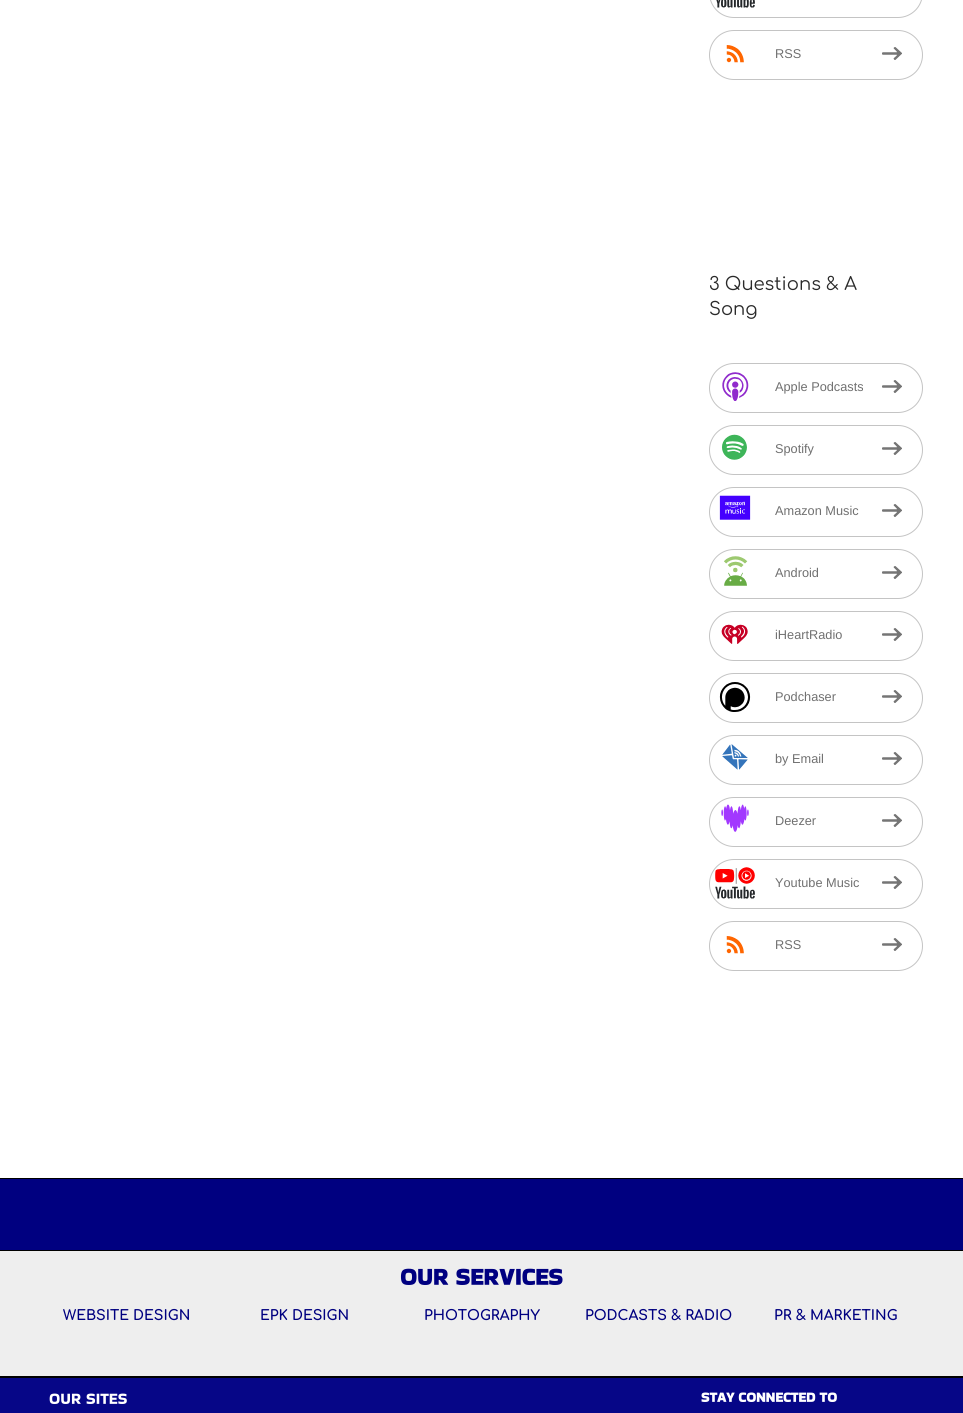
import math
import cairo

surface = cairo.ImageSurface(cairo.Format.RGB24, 963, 1413)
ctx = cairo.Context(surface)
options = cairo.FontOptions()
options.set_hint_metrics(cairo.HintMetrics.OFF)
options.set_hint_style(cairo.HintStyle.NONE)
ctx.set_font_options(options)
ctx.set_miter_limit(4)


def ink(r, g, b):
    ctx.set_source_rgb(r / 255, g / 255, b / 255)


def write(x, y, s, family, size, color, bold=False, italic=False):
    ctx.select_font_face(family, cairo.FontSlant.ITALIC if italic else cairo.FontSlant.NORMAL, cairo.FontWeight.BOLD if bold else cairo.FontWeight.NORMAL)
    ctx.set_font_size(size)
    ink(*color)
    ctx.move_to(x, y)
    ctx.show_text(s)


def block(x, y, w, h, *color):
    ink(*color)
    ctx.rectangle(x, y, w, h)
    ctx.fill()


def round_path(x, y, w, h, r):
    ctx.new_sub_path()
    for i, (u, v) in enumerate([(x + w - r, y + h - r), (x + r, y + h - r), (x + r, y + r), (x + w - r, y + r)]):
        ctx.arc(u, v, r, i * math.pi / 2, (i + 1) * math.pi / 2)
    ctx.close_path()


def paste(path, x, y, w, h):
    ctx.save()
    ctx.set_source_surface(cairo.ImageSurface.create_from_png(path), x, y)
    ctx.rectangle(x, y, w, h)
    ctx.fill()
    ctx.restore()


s1 = dict(family="Liberation Sans", size=12.75, color=(112, 112, 112))
s2 = dict(family="Comfortaa", size=18, color=(42, 42, 42))
s3 = dict(family="Bakbak One", size=24, color=(0, 0, 128), bold=True)
s4 = dict(family="Comfortaa", size=14, color=(0, 0, 128), bold=True)
s5 = dict(family="Bakbak One", size=16, color=(255, 255, 255))
s6 = dict(family="Bakbak One", size=14, color=(255, 255, 255), bold=True)

ink(255, 255, 255)
ctx.paint()
round_path(709.5, -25.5, 213, 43, 24.5)
ink(196, 196, 196)
ctx.set_line_width(1)
ctx.stroke()
paste("pic1.png", 716, 0, 39, 8)
round_path(709.5, 30.5, 213, 49, 24.5)
ctx.stroke()
paste("pic2.png", 726, 45, 18, 18)
write(775, 58, "RSS", **s1)
paste("pic3.png", 882, 47, 20, 13)
write(709, 290, "3 Questions & A", **s2)
write(709, 315, "Song", **s2)
round_path(709.5, 363.5, 213, 49, 24.5)
ink(196, 196, 196)
ctx.stroke()
paste("pic4.png", 722, 372, 27, 29)
write(775, 391, "Apple Podcasts", **s1)
paste("pic3.png", 882, 380, 20, 13)
round_path(709.5, 425.5, 213, 49, 24.5)
ink(196, 196, 196)
ctx.stroke()
paste("pic5.png", 722, 434, 25, 26)
write(775, 453, "Spotify", **s1)
paste("pic3.png", 882, 442, 20, 13)
round_path(709.5, 487.5, 213, 49, 24.5)
ink(196, 196, 196)
ctx.stroke()
paste("pic6.png", 719, 495, 32, 25)
write(775, 515, "Amazon Music", **s1)
paste("pic3.png", 882, 504, 20, 13)
round_path(709.5, 549.5, 213, 49, 24.5)
ink(196, 196, 196)
ctx.stroke()
paste("pic7.png", 724, 556, 24, 30)
write(775, 577, "Android", **s1)
paste("pic3.png", 882, 566, 20, 13)
round_path(709.5, 611.5, 213, 49, 24.5)
ink(196, 196, 196)
ctx.stroke()
paste("pic8.png", 721, 624, 27, 20)
write(775, 639, "iHeartRadio", **s1)
paste("pic3.png", 882, 628, 20, 13)
round_path(709.5, 673.5, 213, 49, 24.5)
ink(196, 196, 196)
ctx.stroke()
paste("pic9.png", 719, 682, 32, 30)
write(775, 701, "Podchaser", **s1)
paste("pic3.png", 882, 690, 20, 13)
round_path(709.5, 735.5, 213, 49, 24.5)
ink(196, 196, 196)
ctx.stroke()
paste("pic10.png", 722, 744, 26, 26)
write(775, 763, "by Email", **s1)
paste("pic3.png", 882, 752, 20, 13)
round_path(709.5, 797.5, 213, 49, 24.5)
ink(196, 196, 196)
ctx.stroke()
paste("pic11.png", 721, 804, 28, 28)
write(775, 825, "Deezer", **s1)
paste("pic3.png", 882, 814, 20, 13)
round_path(709.5, 859.5, 213, 49, 24.5)
ink(196, 196, 196)
ctx.stroke()
paste("pic12.png", 715, 867, 40, 32)
write(775, 887, "Youtube Music", **s1)
paste("pic3.png", 882, 876, 20, 13)
round_path(709.5, 921.5, 213, 49, 24.5)
ink(196, 196, 196)
ctx.stroke()
paste("pic2.png", 726, 936, 18, 18)
write(775, 949, "RSS", **s1)
paste("pic3.png", 882, 938, 20, 13)
block(0, 1179, 963, 71, 0, 0, 128)
block(0, 1178, 963, 1, 0, 0, 0)
block(0, 1251, 963, 125, 238, 238, 238)
block(0, 1250, 963, 1, 0, 0, 0)
write(400, 1285, "OUR SERVICES", **s3)
write(63, 1320, "WEBSITE DESIGN", **s4)
write(260, 1320, "EPK DESIGN", **s4)
write(424, 1320, "PHOTOGRAPHY", **s4)
write(585, 1320, "PODCASTS & RADIO", **s4)
write(774, 1320, "PR & MARKETING", **s4)
block(0, 1376, 963, 2, 0, 0, 0)
block(0, 1378, 963, 35, 6, 6, 135)
write(49, 1404, "OUR SITES", **s5)
write(701, 1402, "STAY CONNECTED TO", **s6)
surface.write_to_png("screenshot.png")
